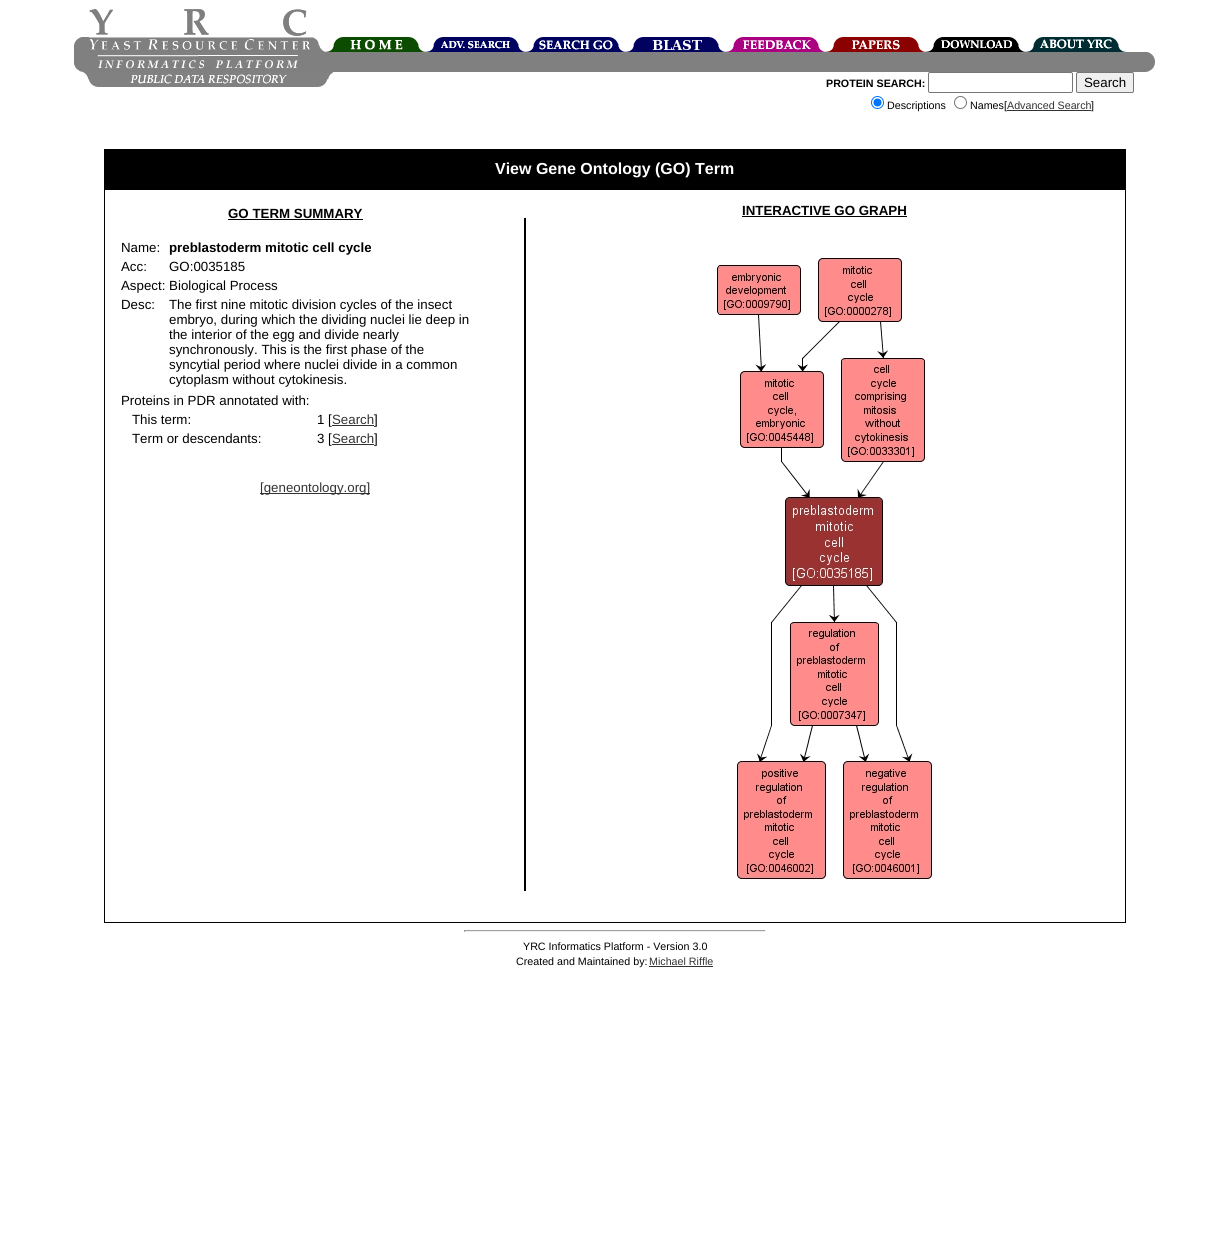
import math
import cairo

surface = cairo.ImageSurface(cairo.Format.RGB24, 1229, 1243)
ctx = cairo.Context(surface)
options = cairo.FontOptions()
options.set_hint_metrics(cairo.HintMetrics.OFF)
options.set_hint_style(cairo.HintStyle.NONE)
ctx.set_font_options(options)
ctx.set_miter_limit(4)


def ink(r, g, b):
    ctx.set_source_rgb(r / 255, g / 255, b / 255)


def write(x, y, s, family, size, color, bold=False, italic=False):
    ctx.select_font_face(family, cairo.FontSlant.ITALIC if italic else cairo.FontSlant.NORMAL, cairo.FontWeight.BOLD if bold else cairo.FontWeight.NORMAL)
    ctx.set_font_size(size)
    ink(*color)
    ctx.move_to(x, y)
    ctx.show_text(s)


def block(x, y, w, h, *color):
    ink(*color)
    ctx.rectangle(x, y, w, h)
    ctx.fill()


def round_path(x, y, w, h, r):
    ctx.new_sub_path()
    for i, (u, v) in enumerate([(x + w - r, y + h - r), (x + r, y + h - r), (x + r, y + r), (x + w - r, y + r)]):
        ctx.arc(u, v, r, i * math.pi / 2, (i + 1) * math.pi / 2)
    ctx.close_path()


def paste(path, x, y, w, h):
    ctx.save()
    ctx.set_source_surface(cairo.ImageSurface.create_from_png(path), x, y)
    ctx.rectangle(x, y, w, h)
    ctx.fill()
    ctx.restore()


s1 = dict(family="Liberation Sans", size=10.7, color=(0, 0, 0), bold=True)
s2 = dict(family="Liberation Sans", size=13.3, color=(0, 0, 0))
s3 = dict(family="Liberation Sans", size=10.7, color=(0, 0, 0))
s4 = dict(family="Liberation Sans", size=10.7, color=(50, 50, 50))
s5 = dict(family="Liberation Sans", size=16, color=(255, 255, 255), bold=True)
s6 = dict(family="Liberation Sans", size=13.3, color=(0, 0, 0), bold=True)
s7 = dict(family="Liberation Sans", size=13.3, color=(50, 50, 50))

ink(255, 255, 255)
ctx.paint()
paste("pic1.png", 74, 37, 15, 15)
paste("pic2.png", 89, 9, 222, 43)
paste("pic3.png", 311, 37, 15, 15)
paste("pic4.png", 326, 37, 100, 15)
paste("pic5.png", 426, 37, 100, 15)
paste("pic6.png", 526, 37, 100, 15)
paste("pic7.png", 626, 37, 100, 15)
paste("pic8.png", 726, 37, 100, 15)
paste("pic9.png", 826, 37, 100, 15)
paste("pic10.png", 926, 37, 100, 15)
paste("pic11.png", 1026, 37, 100, 15)
paste("pic12.png", 74, 52, 15, 20)
paste("pic13.png", 89, 52, 221, 20)
block(310, 52, 830, 20, 128, 128, 128)
paste("pic14.png", 1140, 52, 15, 20)
paste("pic15.png", 83, 72, 250, 15)
write(826, 87, "PROTEIN SEARCH:", **s1)
round_path(928.5, 72.5, 144, 20, 1.5)
ink(118, 118, 118)
ctx.set_line_width(1)
ctx.stroke()
ink(239, 239, 239)
round_path(1076.5, 72.5, 57, 20, 1.5)
ctx.fill_preserve()
ink(118, 118, 118)
ctx.stroke()
write(1084, 87, "Search", **s2)
ctx.new_path()
ctx.arc(877.5, 102.5, 6, 0, 2 * math.pi)
ink(0, 117, 255)
ctx.stroke()
ctx.arc(877.5, 102.5, 4, 0, 2 * math.pi)
ctx.fill()
write(887, 109, "Descriptions", **s3)
ctx.new_path()
ctx.arc(960.5, 102.5, 6, 0, 2 * math.pi)
ink(118, 118, 118)
ctx.stroke()
write(970, 109, "Names[", **s3)
write(1007, 109, "Advanced Search", **s4)
block(1007, 110, 84, 1, 50, 50, 50)
write(1091, 109, "]", **s3)
block(104, 149, 1022, 40, 0, 0, 0)
write(495, 174, "View Gene Ontology (GO) Term", **s5)
ctx.rectangle(104.5, 189.5, 1021, 733)
ink(0, 0, 0)
ctx.stroke()
write(228, 218, "GO TERM SUMMARY", **s6)
block(228, 219, 135, 1, 0, 0, 0)
write(121, 252, "Name:", **s2)
write(169, 252, "preblastoderm mitotic cell cycle", **s6)
write(121, 271, "Acc:", **s2)
write(169, 271, "GO:0035185", **s2)
write(121, 290, "Aspect: Biological Process", **s2)
write(121, 309, "Desc:", **s2)
write(169, 309, "The first nine mitotic division cycles of the insect", **s2)
write(169, 324, "embryo, during which the dividing nuclei lie deep in", **s2)
write(169, 339, "the interior of the egg and divide nearly", **s2)
write(169, 354, "synchronously. This is the first phase of the", **s2)
write(169, 369, "syncytial period where nuclei divide in a common", **s2)
write(169, 384, "cytoplasm without cytokinesis.", **s2)
write(121, 405, "Proteins in PDR annotated with:", **s2)
write(132, 424, "This term:", **s2)
write(317, 424, "1 [", **s2)
write(332, 424, "Search", **s7)
block(332, 425, 42, 1, 50, 50, 50)
write(374, 424, "]", **s2)
write(132, 443, "Term or descendants:", **s2)
write(317, 443, "3 [", **s2)
write(332, 443, "Search", **s7)
block(332, 444, 42, 1, 50, 50, 50)
write(374, 443, "]", **s2)
block(260, 493, 110, 1, 50, 50, 50)
write(260, 492, "[geneontology.org]", **s7)
block(524, 218, 2, 673, 0, 0, 0)
write(742, 215, "INTERACTIVE GO GRAPH", **s6)
block(742, 216, 165, 1, 0, 0, 0)
paste("pic16.png", 717, 258, 216, 622)
block(464, 930, 302, 1, 159, 159, 159)
block(765, 930, 1, 2, 238, 238, 238)
block(464, 931, 302, 1, 238, 238, 238)
block(464, 930, 1, 2, 159, 159, 159)
write(523, 950, "YRC Informatics Platform - Version 3.0", **s3)
write(516, 965, "Created and Maintained by:", **s3)
write(649, 965, "Michael Riffle", **s4)
block(649, 966, 64, 1, 50, 50, 50)
surface.write_to_png("screenshot.png")
